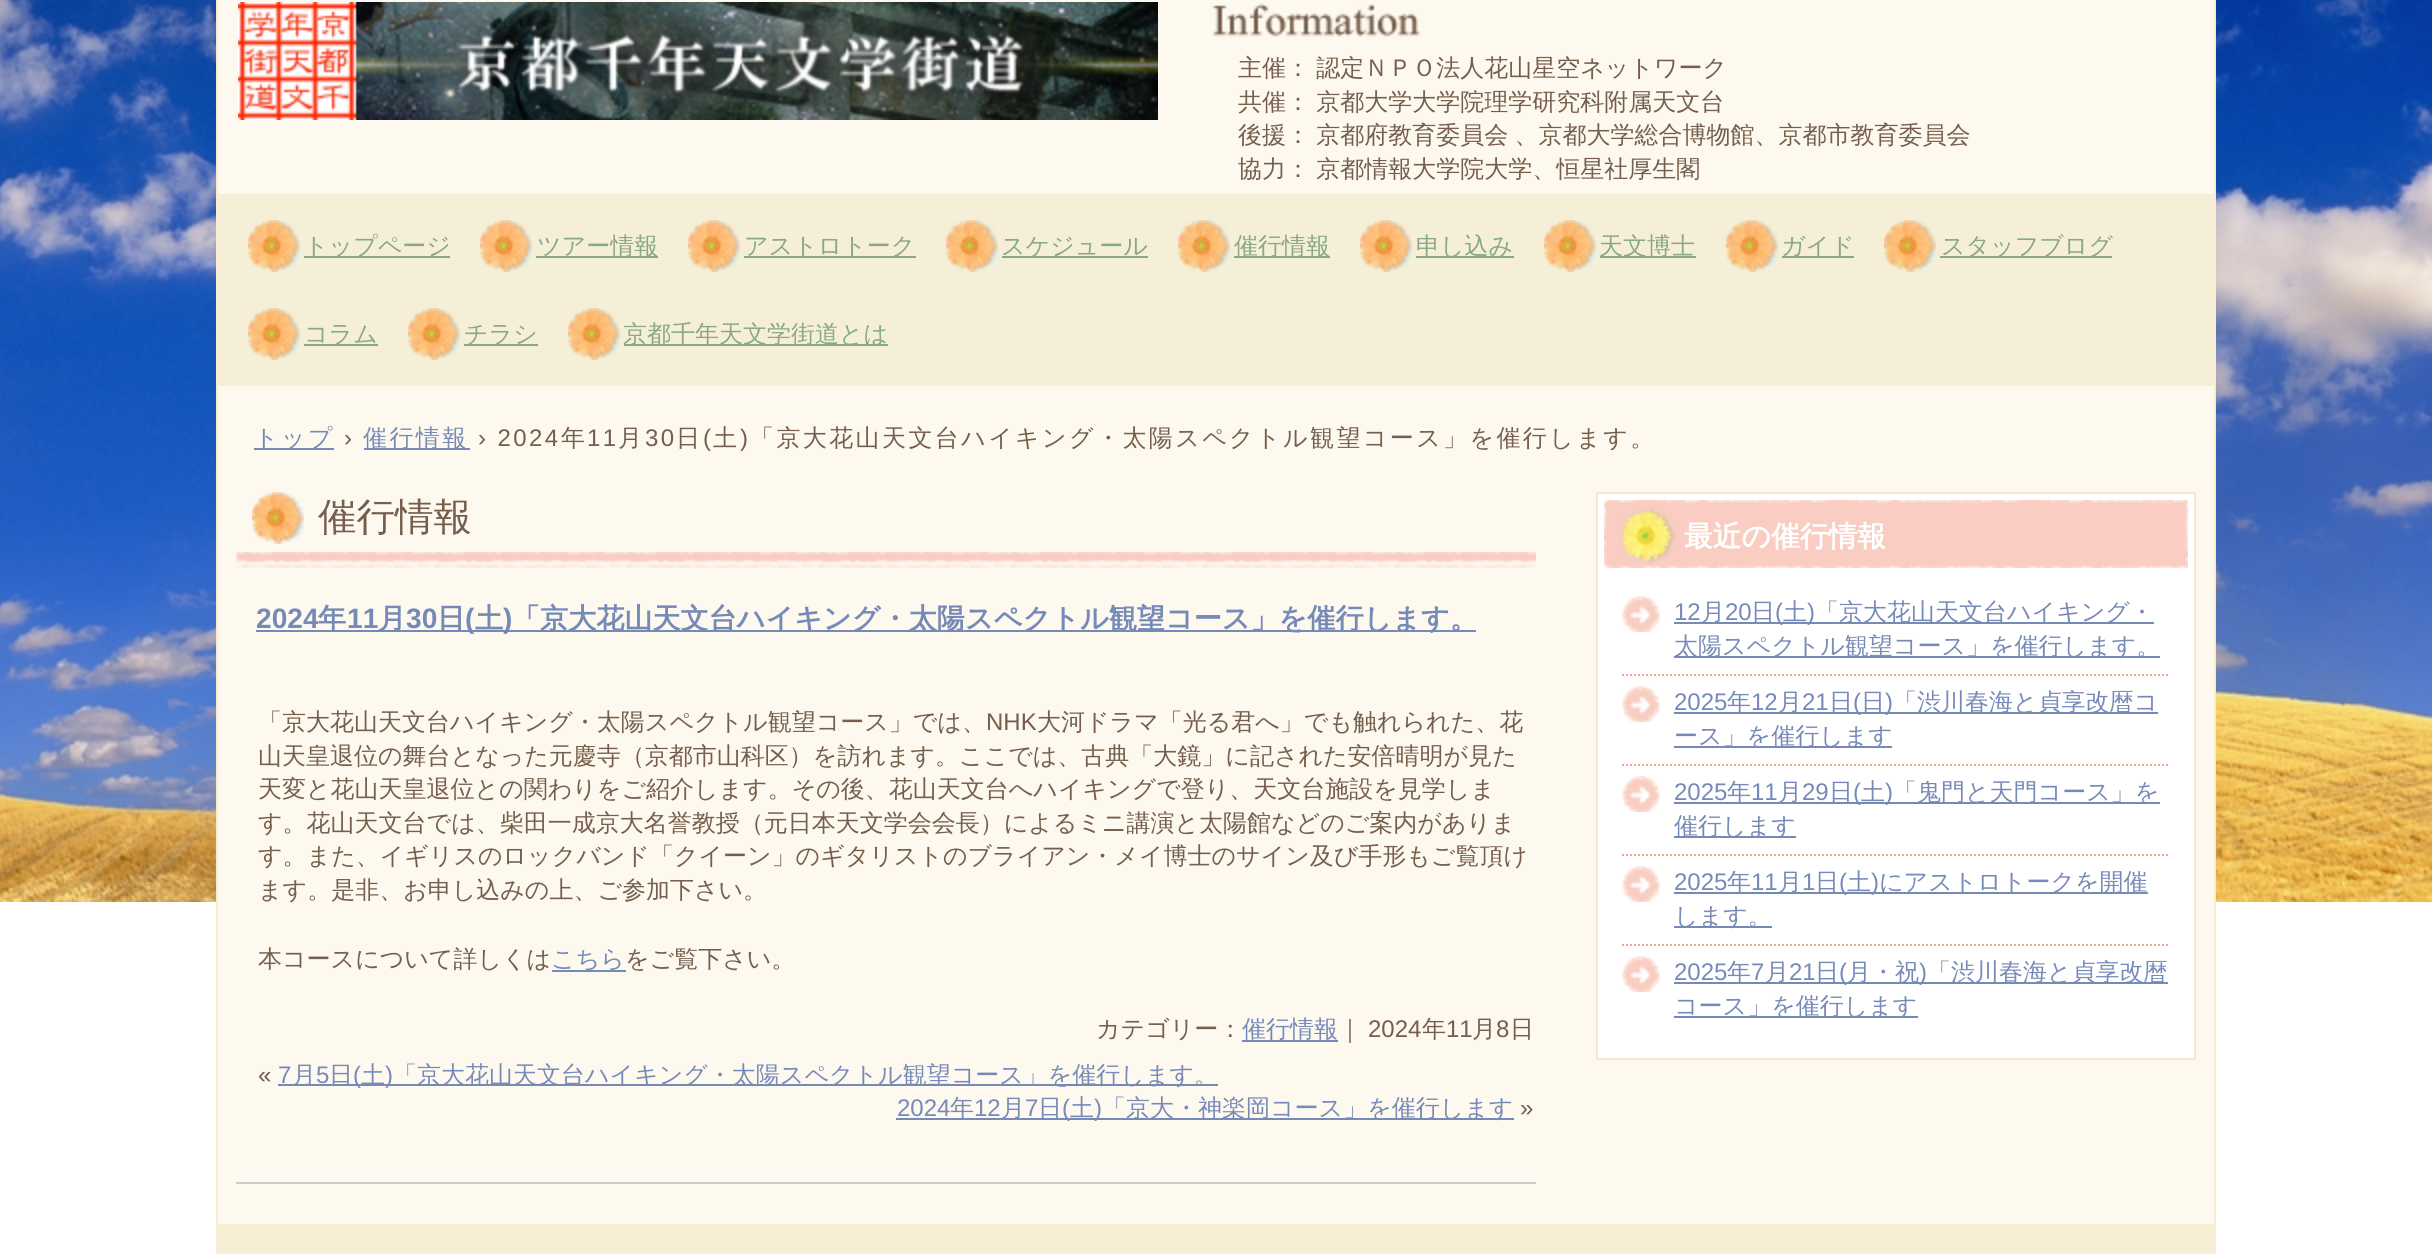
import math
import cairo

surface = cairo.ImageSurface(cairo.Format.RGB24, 2432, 1254)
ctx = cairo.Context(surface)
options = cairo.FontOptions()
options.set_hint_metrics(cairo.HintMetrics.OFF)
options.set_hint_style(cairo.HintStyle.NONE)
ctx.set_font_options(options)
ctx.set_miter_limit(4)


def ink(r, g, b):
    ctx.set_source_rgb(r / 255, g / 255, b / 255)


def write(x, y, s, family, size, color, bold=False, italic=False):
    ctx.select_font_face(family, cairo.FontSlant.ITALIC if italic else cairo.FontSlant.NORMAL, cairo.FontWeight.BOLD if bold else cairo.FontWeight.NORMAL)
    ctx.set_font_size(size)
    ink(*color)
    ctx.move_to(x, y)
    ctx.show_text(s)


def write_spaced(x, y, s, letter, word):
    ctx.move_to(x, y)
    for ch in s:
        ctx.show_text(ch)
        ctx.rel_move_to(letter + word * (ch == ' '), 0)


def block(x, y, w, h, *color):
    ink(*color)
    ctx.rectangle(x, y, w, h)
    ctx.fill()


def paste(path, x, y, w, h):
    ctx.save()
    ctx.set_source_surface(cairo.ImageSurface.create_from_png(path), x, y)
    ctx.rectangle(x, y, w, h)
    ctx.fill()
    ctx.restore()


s1 = dict(family="WenQuanYi Zen Hei Medium", size=24, color=(136, 168, 134))
s2 = dict(family="WenQuanYi Zen Hei Medium", size=38.5, color=(117, 95, 76))
s3 = dict(family="Liberation Sans", size=28.1, color=(118, 138, 184), bold=True)
s4 = dict(family="WenQuanYi Zen Hei", size=28.1, color=(118, 138, 184), bold=True)
s5 = dict(family="WenQuanYi Zen Hei Medium", size=24, color=(117, 95, 76))
s6 = dict(family="Liberation Sans", size=24, color=(117, 95, 76))
s7 = dict(family="WenQuanYi Zen Hei Medium", size=24, color=(118, 138, 184))
s8 = dict(family="Liberation Sans", size=24, color=(118, 138, 184))
s9 = dict(family="WenQuanYi Zen Hei", size=28.75, color=(255, 255, 255), bold=True)

ink(255, 255, 255)
ctx.paint()
paste("pic1.png", 0, 0, 2432, 902)
block(218, 0, 1996, 1224, 254, 249, 239)
block(2214, 0, 2, 1254, 250, 235, 209)
block(216, 0, 2, 1254, 250, 235, 209)
paste("pic2.png", 238, 2, 920, 118)
paste("pic3.png", 1211, 3, 210, 34)
ctx.select_font_face("WenQuanYi Zen Hei Medium")
ctx.set_font_size(24)
ink(117, 95, 76)
write_spaced(1238, 76, "主催： 認定ＮＰＯ法人花山星空ネットワーク", 0, -1)
write_spaced(1238, 110, "共催： 京都大学大学院理学研究科附属天文台", 0, -1)
write_spaced(1238, 143, "後援： 京都府教育委員会 、京都大学総合博物館、京都市教育委員会", 0, -1)
write_spaced(1238, 177, "協力： 京都情報大学院大学、恒星社厚生閣", 0, -1)
block(218, 194, 1996, 192, 246, 239, 215)
paste("pic4.png", 248, 220, 52, 52)
block(304, 256, 146, 2, 136, 168, 134)
write(304, 254, "トップページ", **s1)
paste("pic4.png", 480, 220, 52, 52)
block(536, 256, 122, 2, 136, 168, 134)
write(537, 254, "ツアー情報", **s1)
paste("pic4.png", 688, 220, 52, 52)
block(744, 256, 172, 2, 136, 168, 134)
write(744, 254, "アストロトーク", **s1)
paste("pic4.png", 946, 220, 52, 52)
block(1002, 256, 146, 2, 136, 168, 134)
write(1001, 254, "スケジュール", **s1)
paste("pic4.png", 1178, 220, 52, 52)
block(1234, 256, 96, 2, 136, 168, 134)
write(1234, 254, "催行情報", **s1)
paste("pic4.png", 1360, 220, 52, 52)
block(1416, 256, 98, 2, 136, 168, 134)
write(1416, 254, "申し込み", **s1)
paste("pic4.png", 1544, 220, 52, 52)
block(1600, 256, 96, 2, 136, 168, 134)
write(1599, 254, "天文博士", **s1)
paste("pic4.png", 1726, 220, 52, 52)
block(1782, 256, 72, 2, 136, 168, 134)
write(1781, 254, "ガイド", **s1)
paste("pic4.png", 1884, 220, 52, 52)
block(1940, 256, 172, 2, 136, 168, 134)
write(1941, 254, "スタッフブログ", **s1)
paste("pic4.png", 248, 308, 52, 52)
block(304, 344, 74, 2, 136, 168, 134)
write(304, 342, "コラム", **s1)
paste("pic4.png", 408, 308, 52, 52)
block(464, 344, 74, 2, 136, 168, 134)
write(464, 342, "チラシ", **s1)
paste("pic4.png", 568, 308, 52, 52)
block(624, 344, 264, 2, 136, 168, 134)
write(623, 342, "京都千年天文学街道とは", **s1)
block(254, 448, 80, 2, 118, 138, 184)
write_spaced(254, 446, "トップ", 2.4, 0)
ctx.select_font_face("Liberation Sans")
ink(117, 95, 76)
write_spaced(344, 446, "›", 2.4, 0)
block(364, 448, 106, 2, 118, 138, 184)
ctx.select_font_face("WenQuanYi Zen Hei Medium")
write_spaced(363, 446, "催行情報", 2.4, 0)
ctx.select_font_face("Liberation Sans")
ink(117, 95, 76)
write_spaced(478, 446, "› 2024", 2.4, 0)
ctx.select_font_face("WenQuanYi Zen Hei Medium")
write_spaced(561, 446, "年", 2.4, 0)
ctx.select_font_face("Liberation Sans")
write_spaced(587, 446, "11", 2.4, 0)
ctx.select_font_face("WenQuanYi Zen Hei Medium")
write_spaced(618, 446, "月", 2.4, 0)
ctx.select_font_face("Liberation Sans")
write_spaced(645, 446, "30", 2.4, 0)
ctx.select_font_face("WenQuanYi Zen Hei Medium")
write_spaced(676, 446, "日", 2.4, 0)
ctx.select_font_face("Liberation Sans")
write_spaced(703, 446, "(", 2.4, 0)
ctx.select_font_face("WenQuanYi Zen Hei Medium")
write_spaced(713, 446, "土", 2.4, 0)
ctx.select_font_face("Liberation Sans")
write_spaced(740, 446, ")", 2.4, 0)
ctx.select_font_face("WenQuanYi Zen Hei Medium")
write_spaced(750, 446, "「京大花山天文台ハイキング・太陽スペクトル観望コース」を催行します。", 2.4, 0)
paste("pic5.png", 236, 552, 1300, 16)
paste("pic6.png", 252, 492, 52, 52)
write(318, 530, "催行情報", **s2)
block(236, 1182, 1300, 2, 204, 204, 204)
write(256, 628, "2024", **s3)
block(256, 630, 1220, 2, 118, 138, 184)
write(318, 628, "年", **s4)
write(347, 628, "11", **s3)
write(378, 628, "月", **s4)
write(406, 628, "30", **s3)
write(437, 628, "日", **s4)
write(465, 628, "(", **s3)
write(475, 628, "土", **s4)
write(503, 628, ")", **s3)
write(512, 628, "「京大花山天文台ハイキング・太陽スペクトル観望コース」を催行します。", **s4)
write(258, 730, "「京大花山天文台ハイキング・太陽スペクトル観望コース」では、", **s5)
write(986, 730, "NHK", **s6)
write(1037, 730, "大河ドラマ「光る君へ」でも触れられた、花", **s5)
write(258, 764, "山天皇退位の舞台となった元慶寺（京都市山科区）を訪れます。ここでは、古典「大鏡」に記された安倍晴明が見た", **s5)
write(258, 797, "天変と花山天皇退位との関わりをご紹介します。その後、花山天文台へハイキングで登り、天文台施設を見学しま", **s5)
write(258, 831, "す。花山天文台では、柴田一成京大名誉教授（元日本天文学会会長）によるミニ講演と太陽館などのご案内がありま", **s5)
write(258, 864, "す。また、イギリスのロックバンド「クイーン」のギタリストのブライアン・メイ博士のサイン及び手形もご覧頂け", **s5)
write(258, 898, "ます。是非、お申し込みの上、ご参加下さい。", **s5)
write(258, 967, "本コースについて詳しくは", **s5)
block(552, 970, 74, 2, 118, 138, 184)
write(551, 967, "こちら", **s7)
write(625, 967, "をご覧下さい。", **s5)
write(1096, 1037, "カテゴリー：", **s5)
block(1242, 1040, 96, 2, 118, 138, 184)
write(1242, 1037, "催行情報", **s7)
write(1338, 1037, "｜", **s5)
write(1368, 1037, "2024", **s6)
write(1422, 1037, "年", **s5)
write(1446, 1037, "11", **s6)
write(1472, 1037, "月", **s5)
write(1496, 1037, "8", **s6)
write(1510, 1037, "日", **s5)
write(258, 1083, "«", **s6)
write(278, 1083, "7", **s8)
block(278, 1084, 940, 2, 118, 138, 184)
write(292, 1083, "月", **s7)
write(316, 1083, "5", **s8)
write(329, 1083, "日", **s7)
write(353, 1083, "(", **s8)
write(361, 1083, "土", **s7)
write(385, 1083, ")", **s8)
write(393, 1083, "「京大花山天文台ハイキング・太陽スペクトル観望コース」を催行します。", **s7)
write(897, 1116, "2024", **s8)
block(896, 1118, 618, 2, 118, 138, 184)
write(950, 1116, "年", **s7)
write(974, 1116, "12", **s8)
write(1001, 1116, "月", **s7)
write(1025, 1116, "7", **s8)
write(1038, 1116, "日", **s7)
write(1062, 1116, "(", **s8)
write(1070, 1116, "土", **s7)
write(1094, 1116, ")", **s8)
write(1102, 1116, "「京大・神楽岡コース」を催行します", **s7)
write(1520, 1116, "»", **s6)
ink(255, 255, 255)
ctx.rectangle(1597, 493, 598, 566)
ctx.fill_preserve()
ink(248, 232, 208)
ctx.stroke()
paste("pic7.png", 1604, 500, 584, 68)
write(1684, 546, "最近の催行情報", **s9)
paste("pic8.png", 1622, 596, 38, 36)
ctx.new_path()
ctx.move_to(1622, 675)
ctx.line_to(2170, 675)
ink(241, 167, 152)
ctx.set_dash([2, 2])
ctx.stroke()
write(1674, 620, "12", **s8)
block(1674, 622, 480, 2, 118, 138, 184)
write(1701, 620, "月", **s7)
write(1725, 620, "20", **s8)
write(1751, 620, "日", **s7)
write(1775, 620, "(", **s8)
write(1783, 620, "土", **s7)
write(1807, 620, ")", **s8)
write(1815, 620, "「京大花山天文台ハイキング・", **s7)
block(1674, 656, 486, 2, 118, 138, 184)
write(1674, 654, "太陽スペクトル観望コース」を催行します。", **s7)
paste("pic8.png", 1622, 686, 38, 36)
ctx.new_path()
ctx.move_to(1622, 765)
ctx.line_to(2170, 765)
ink(241, 167, 152)
ctx.stroke()
write(1674, 710, "2025", **s8)
block(1674, 712, 484, 2, 118, 138, 184)
write(1727, 710, "年", **s7)
write(1751, 710, "12", **s8)
write(1778, 710, "月", **s7)
write(1802, 710, "21", **s8)
write(1829, 710, "日", **s7)
write(1853, 710, "(", **s8)
write(1861, 710, "日", **s7)
write(1885, 710, ")", **s8)
write(1893, 710, "「渋川春海と貞享改暦コ", **s7)
block(1674, 746, 218, 2, 118, 138, 184)
write(1674, 744, "ース」を催行します", **s7)
paste("pic8.png", 1622, 776, 38, 36)
ctx.new_path()
ctx.move_to(1622, 855)
ctx.line_to(2170, 855)
ink(241, 167, 152)
ctx.stroke()
write(1674, 800, "2025", **s8)
block(1674, 802, 486, 2, 118, 138, 184)
write(1727, 800, "年", **s7)
write(1751, 800, "11", **s8)
write(1778, 800, "月", **s7)
write(1802, 800, "29", **s8)
write(1829, 800, "日", **s7)
write(1853, 800, "(", **s8)
write(1861, 800, "土", **s7)
write(1885, 800, ")", **s8)
write(1893, 800, "「鬼門と天門コース」を", **s7)
block(1674, 836, 122, 2, 118, 138, 184)
write(1674, 834, "催行します", **s7)
paste("pic8.png", 1622, 866, 38, 36)
ctx.new_path()
ctx.move_to(1622, 945)
ctx.line_to(2170, 945)
ink(241, 167, 152)
ctx.stroke()
write(1674, 890, "2025", **s8)
block(1674, 892, 474, 2, 118, 138, 184)
write(1727, 890, "年", **s7)
write(1751, 890, "11", **s8)
write(1778, 890, "月", **s7)
write(1802, 890, "1", **s8)
write(1815, 890, "日", **s7)
write(1839, 890, "(", **s8)
write(1847, 890, "土", **s7)
write(1871, 890, ")", **s8)
write(1879, 890, "にアストロトークを開催", **s7)
block(1674, 926, 98, 2, 118, 138, 184)
write(1674, 924, "します。", **s7)
paste("pic8.png", 1622, 956, 38, 36)
write(1674, 980, "2025", **s8)
block(1674, 982, 494, 2, 118, 138, 184)
write(1727, 980, "年", **s7)
write(1751, 980, "7", **s8)
write(1765, 980, "月", **s7)
write(1789, 980, "21", **s8)
write(1815, 980, "日", **s7)
write(1839, 980, "(", **s8)
write(1847, 980, "月・祝", **s7)
write(1919, 980, ")", **s8)
write(1927, 980, "「渋川春海と貞享改暦", **s7)
block(1674, 1016, 244, 2, 118, 138, 184)
write(1674, 1014, "コース」を催行します", **s7)
block(218, 1224, 1996, 30, 246, 239, 214)
surface.write_to_png("screenshot.png")
